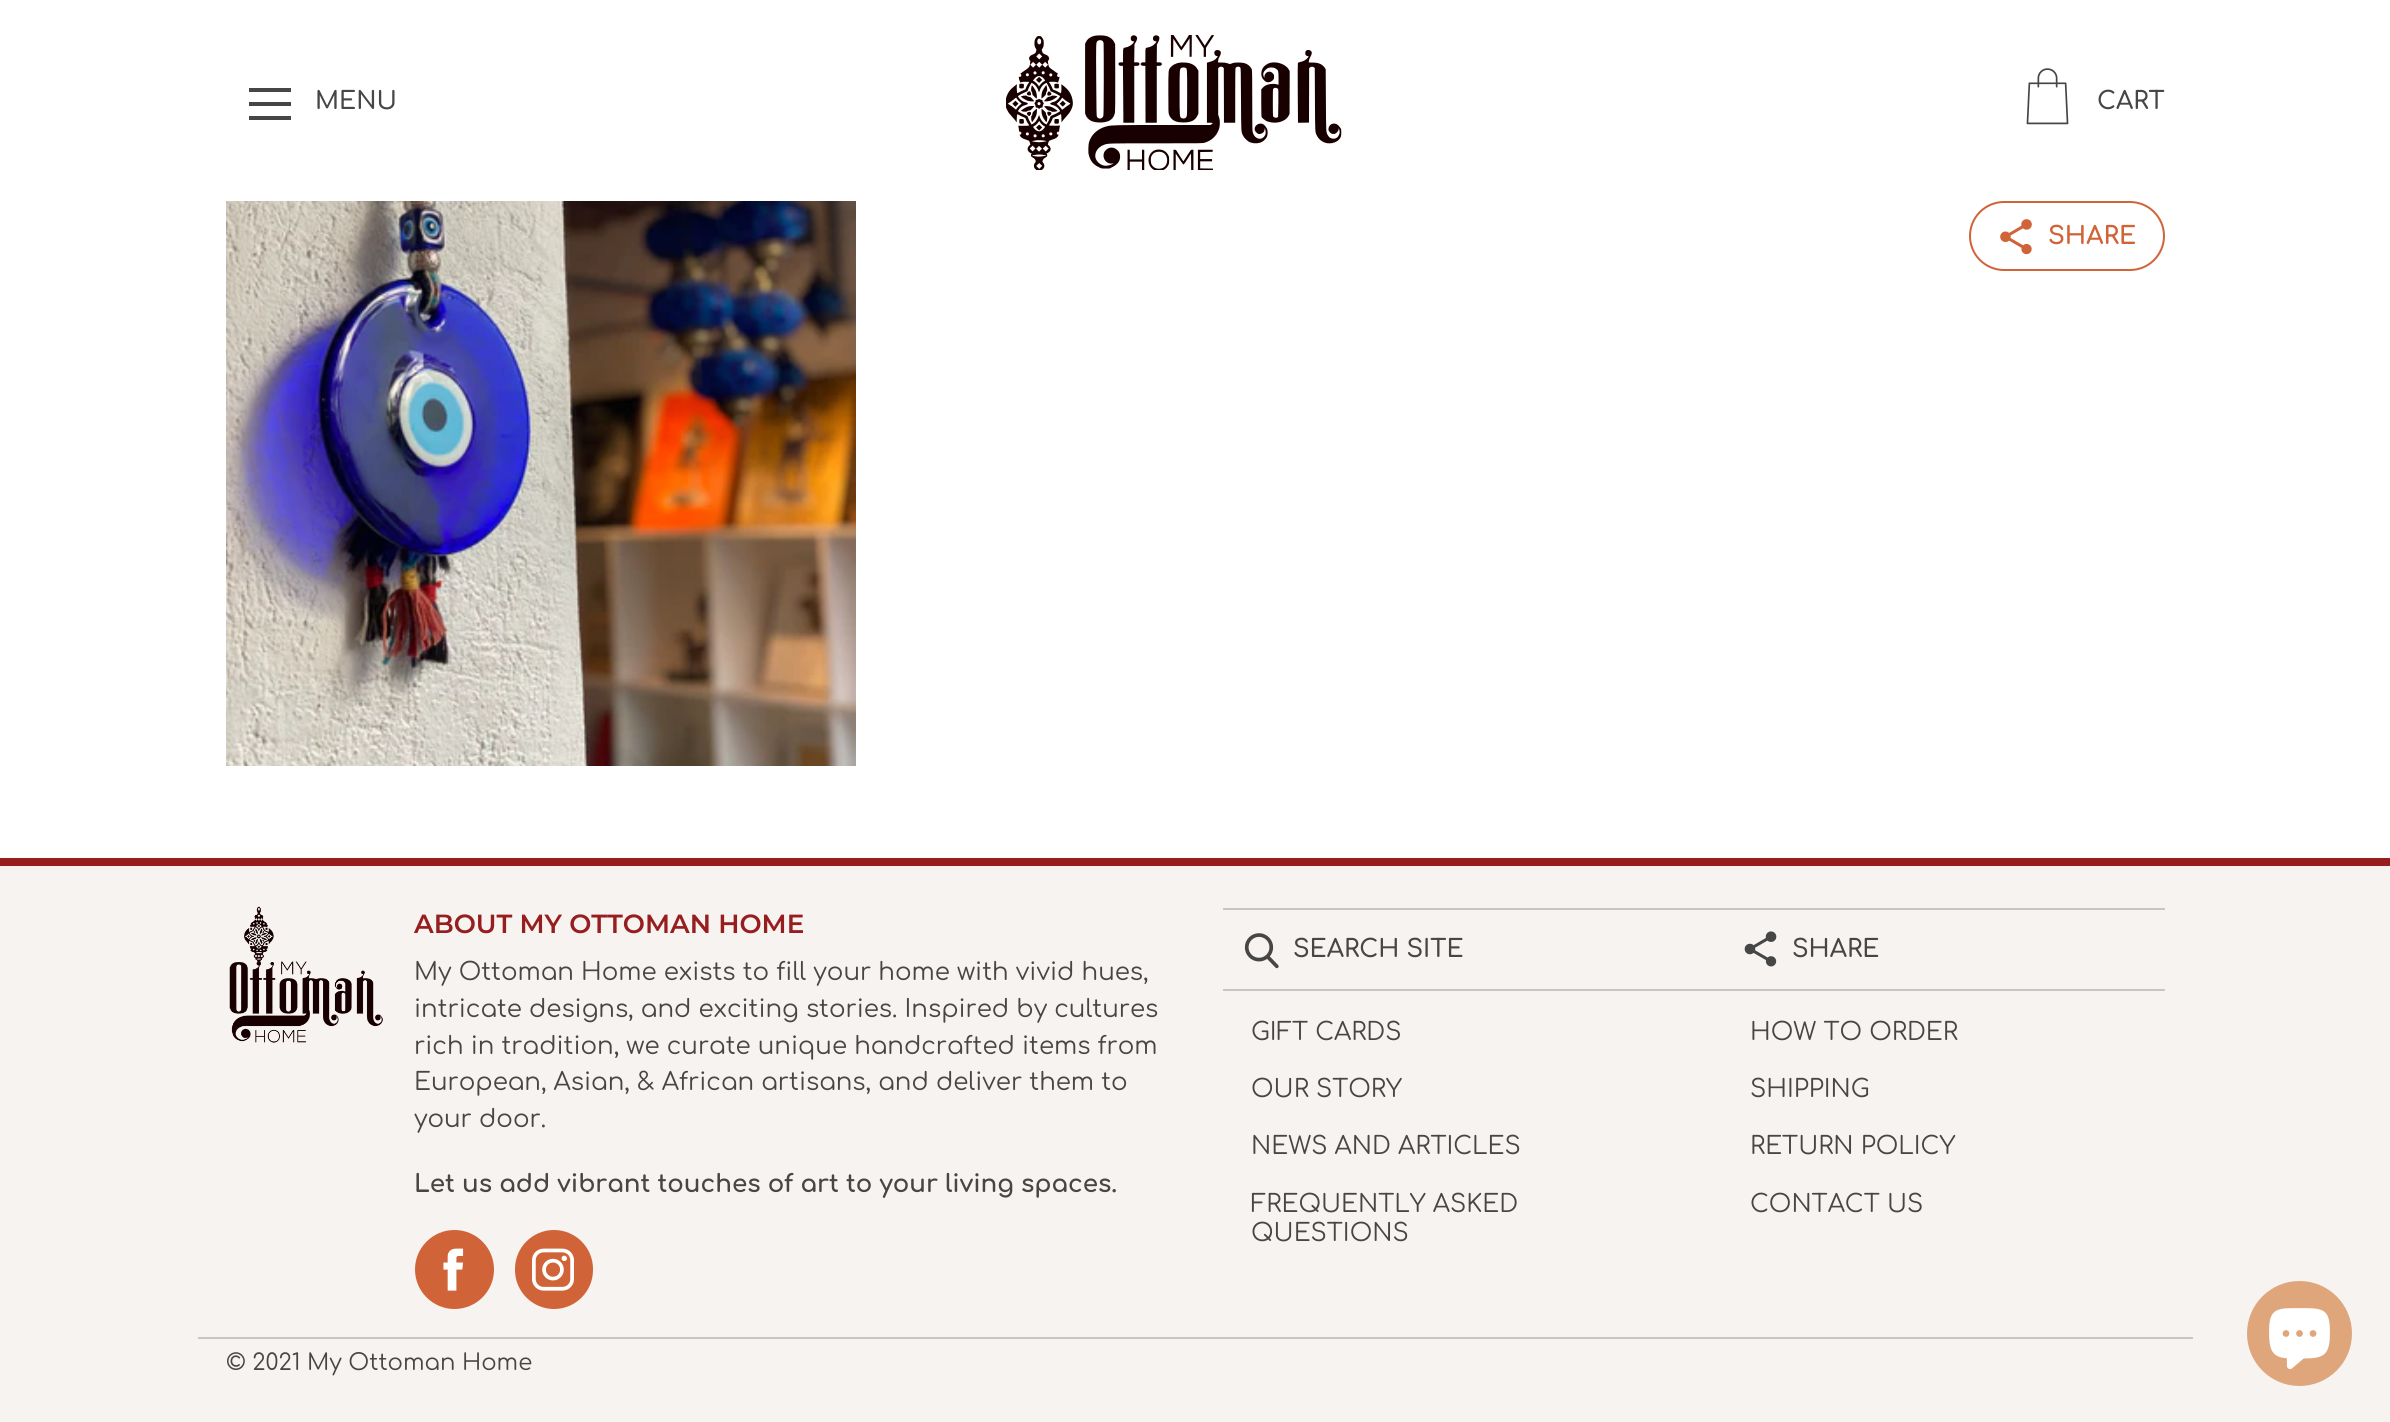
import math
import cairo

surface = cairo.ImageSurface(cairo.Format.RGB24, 2390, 1422)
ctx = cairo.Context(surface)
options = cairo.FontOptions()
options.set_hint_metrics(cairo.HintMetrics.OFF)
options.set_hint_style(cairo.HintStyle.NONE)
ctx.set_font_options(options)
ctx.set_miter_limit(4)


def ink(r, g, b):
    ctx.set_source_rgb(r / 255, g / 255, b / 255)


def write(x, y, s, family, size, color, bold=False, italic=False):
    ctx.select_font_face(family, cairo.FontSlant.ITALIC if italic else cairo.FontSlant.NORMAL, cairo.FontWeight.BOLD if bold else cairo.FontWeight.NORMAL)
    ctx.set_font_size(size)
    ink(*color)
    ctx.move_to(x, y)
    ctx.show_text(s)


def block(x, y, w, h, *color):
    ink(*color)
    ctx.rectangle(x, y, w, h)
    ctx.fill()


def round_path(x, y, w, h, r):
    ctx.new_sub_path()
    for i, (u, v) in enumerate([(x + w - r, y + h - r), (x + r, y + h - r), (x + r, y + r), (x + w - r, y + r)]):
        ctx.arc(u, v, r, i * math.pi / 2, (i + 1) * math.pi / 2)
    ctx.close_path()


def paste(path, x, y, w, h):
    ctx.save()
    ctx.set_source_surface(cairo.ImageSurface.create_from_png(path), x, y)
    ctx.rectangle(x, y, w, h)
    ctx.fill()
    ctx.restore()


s1 = dict(family="Comfortaa SemiBold", size=24.5, color=(70, 70, 70))
s2 = dict(family="Comfortaa", size=24.5, color=(208, 99, 56), bold=True)
s3 = dict(family="Montserrat SemiBold", size=26.25, color=(150, 30, 31))
s4 = dict(family="Comfortaa", size=24.5, color=(70, 70, 70))
s5 = dict(family="Comfortaa", size=24.5, color=(70, 70, 70), bold=True)
s6 = dict(family="Comfortaa", size=22.75, color=(70, 70, 70))

ink(255, 255, 255)
ctx.paint()
paste("pic1.png", 1006, 35, 336, 135)
block(249, 88, 42, 4, 70, 70, 70)
write(315, 109, "MENU", **s1)
block(249, 102, 42, 4, 70, 70, 70)
block(249, 116, 42, 4, 70, 70, 70)
paste("pic2.png", 2026, 68, 43, 57)
write(2097, 109, "CART", **s1)
paste("pic3.png", 226, 201, 630, 565)
round_path(1970, 202, 194, 68, 34)
ink(208, 99, 56)
ctx.stroke()
paste("pic4.png", 2000, 219, 32, 36)
write(2048, 244, "SHARE", **s2)
block(0, 866, 2390, 556, 247, 243, 240)
block(0, 858, 2390, 8, 150, 30, 31)
paste("pic5.png", 229, 906, 154, 137)
write(414, 933, "ABOUT MY OTTOMAN HOME", **s3)
write(414, 980, "My Ottoman Home exists to fill your home with vivid hues,", **s4)
write(414, 1017, "intricate designs, and exciting stories. Inspired by cultures", **s4)
write(414, 1054, "rich in tradition, we curate unique handcrafted items from", **s4)
write(414, 1090, "European, Asian, & African artisans, and deliver them to", **s4)
write(414, 1127, "your door.", **s4)
write(414, 1192, "Let us add vibrant touches of art to your living spaces.", **s5)
ink(208, 99, 56)
ctx.new_path()
ctx.arc(454.5, 1269.5, 39.5, 0, 2 * math.pi)
ctx.fill()
paste("pic6.png", 443, 1248, 21, 43)
round_path(515, 1230, 78, 79, 39)
ctx.fill()
paste("pic7.png", 532, 1248, 42, 43)
block(1223, 908, 942, 2, 198, 198, 198)
paste("pic8.png", 1244, 933, 35, 36)
write(1293, 957, "SEARCH SITE", **s1)
paste("pic9.png", 1744, 931, 33, 36)
write(1792, 957, "SHARE", **s1)
block(1223, 989, 942, 2, 198, 198, 198)
write(1251, 1040, "GIFT CARDS", **s4)
write(1251, 1097, "OUR STORY", **s4)
write(1251, 1154, "NEWS AND ARTICLES", **s4)
write(1251, 1212, "FREQUENTLY ASKED", **s4)
write(1251, 1241, "QUESTIONS", **s4)
write(1750, 1040, "HOW TO ORDER", **s4)
write(1750, 1097, "SHIPPING", **s4)
write(1750, 1154, "RETURN POLICY", **s4)
write(1750, 1212, "CONTACT US", **s4)
block(198, 1337, 1995, 2, 198, 198, 198)
write(226, 1370, "© 2021 My Ottoman Home", **s6)
ink(223, 166, 124)
ctx.new_path()
ctx.arc(2299.5, 1333.5, 52.5, 0, 2 * math.pi)
ctx.fill()
paste("pic10.png", 2269, 1308, 61, 61)
surface.write_to_png("screenshot.png")
